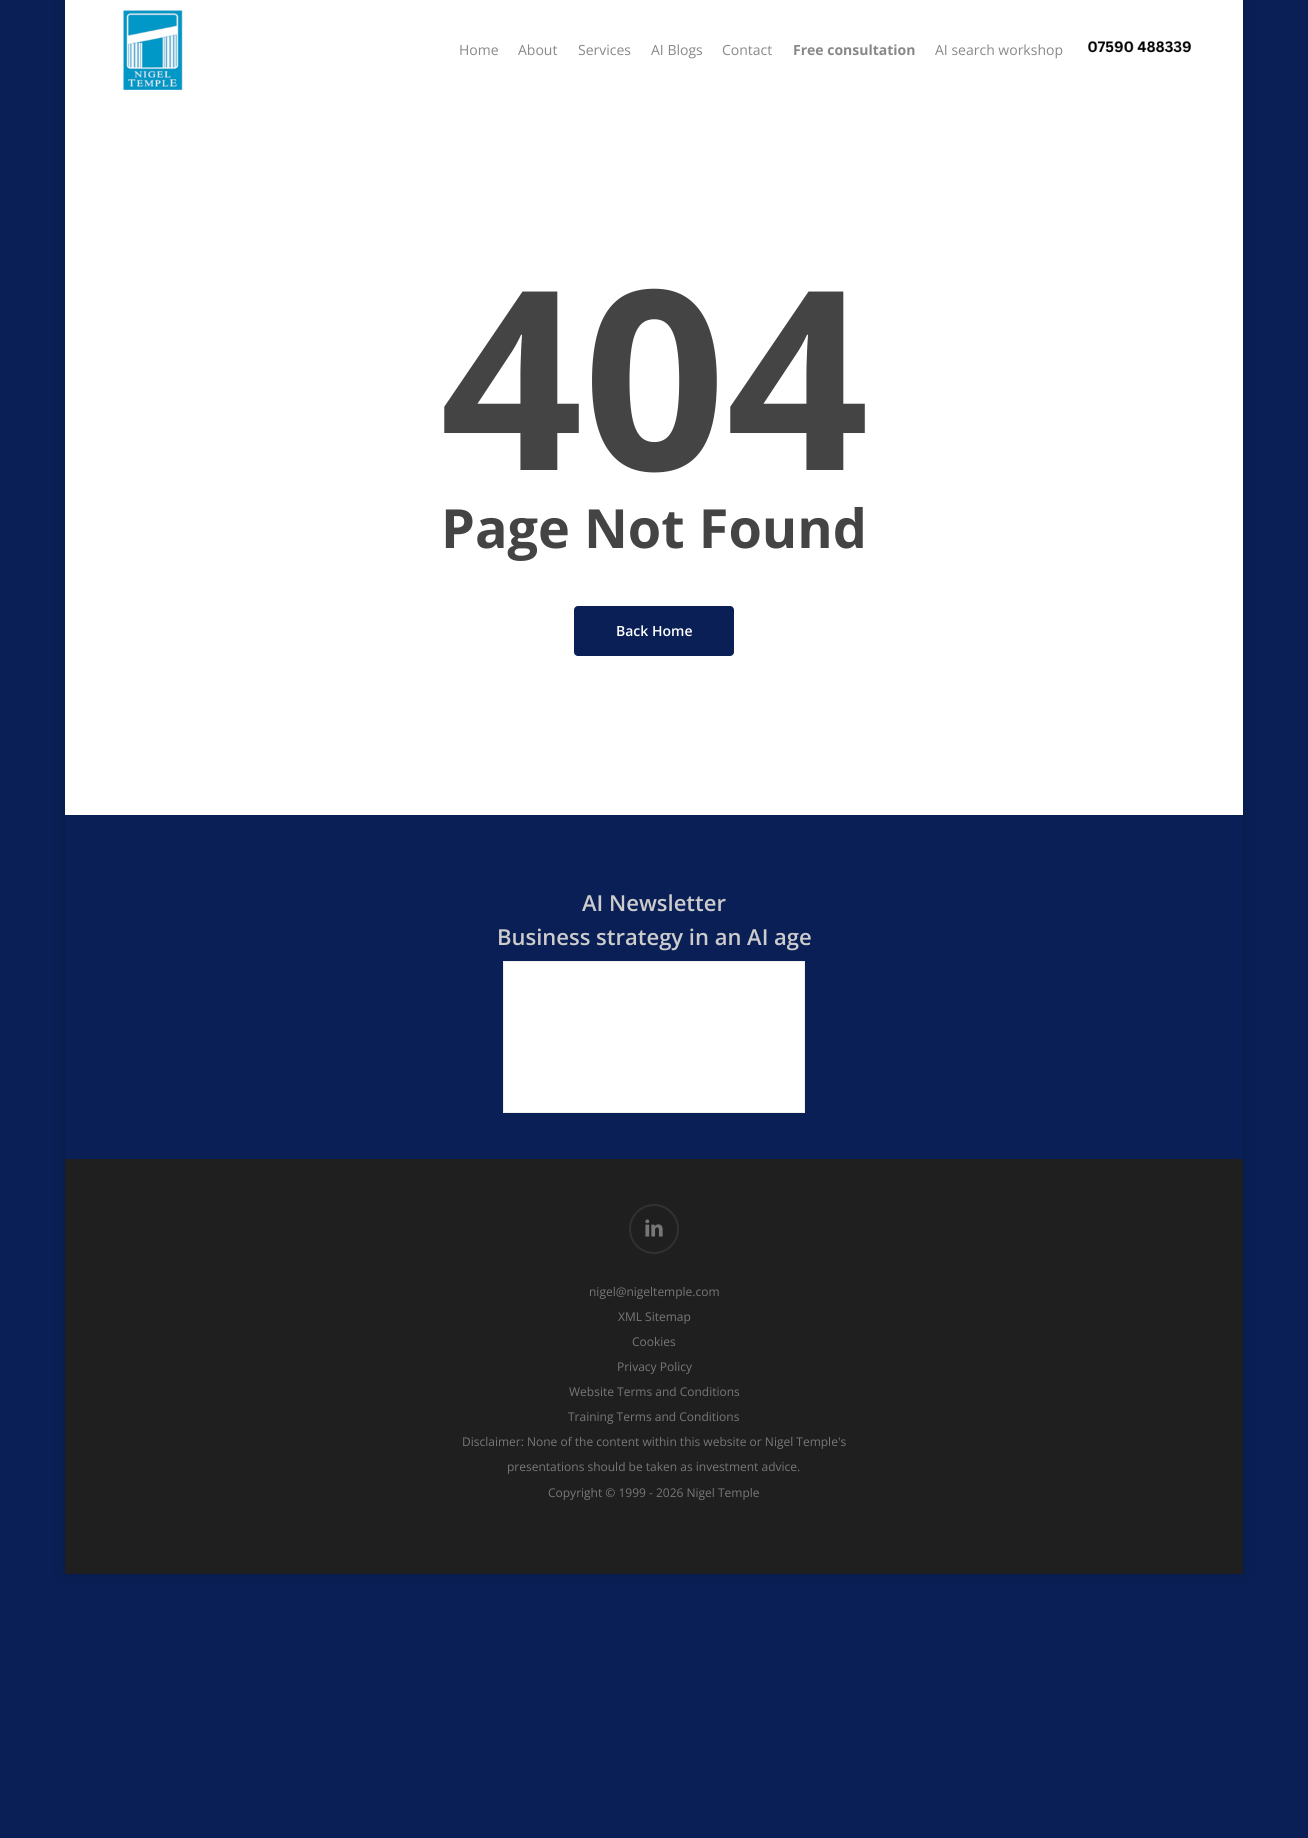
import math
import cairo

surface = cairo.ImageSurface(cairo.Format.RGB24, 1308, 1838)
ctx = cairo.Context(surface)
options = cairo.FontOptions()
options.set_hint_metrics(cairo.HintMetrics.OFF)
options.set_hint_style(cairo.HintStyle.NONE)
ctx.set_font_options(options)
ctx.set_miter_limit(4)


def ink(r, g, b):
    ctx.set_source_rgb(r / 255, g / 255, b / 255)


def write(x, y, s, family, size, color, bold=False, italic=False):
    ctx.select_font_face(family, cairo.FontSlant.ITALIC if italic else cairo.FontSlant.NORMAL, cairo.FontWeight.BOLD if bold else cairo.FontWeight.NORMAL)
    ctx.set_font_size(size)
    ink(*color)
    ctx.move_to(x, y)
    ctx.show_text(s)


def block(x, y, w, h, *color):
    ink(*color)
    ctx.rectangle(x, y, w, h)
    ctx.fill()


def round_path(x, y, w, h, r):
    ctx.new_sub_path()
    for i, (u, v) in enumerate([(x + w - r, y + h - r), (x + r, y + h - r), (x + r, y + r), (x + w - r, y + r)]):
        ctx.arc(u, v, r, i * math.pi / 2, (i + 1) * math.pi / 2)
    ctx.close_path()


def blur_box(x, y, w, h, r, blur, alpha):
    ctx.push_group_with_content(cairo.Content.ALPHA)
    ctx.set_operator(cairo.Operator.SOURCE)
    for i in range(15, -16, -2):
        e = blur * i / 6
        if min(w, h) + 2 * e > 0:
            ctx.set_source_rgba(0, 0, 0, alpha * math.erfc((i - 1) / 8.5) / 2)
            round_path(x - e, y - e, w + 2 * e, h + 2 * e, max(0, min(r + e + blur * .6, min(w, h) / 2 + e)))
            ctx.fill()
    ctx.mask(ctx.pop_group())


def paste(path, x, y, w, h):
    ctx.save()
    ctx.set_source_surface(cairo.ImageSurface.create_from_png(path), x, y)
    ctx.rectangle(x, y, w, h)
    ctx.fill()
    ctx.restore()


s1 = dict(family="Open Sans", size=14, color=(136, 136, 136))
s2 = dict(family="Open Sans", size=14, color=(136, 136, 136), bold=True)
s3 = dict(family="Open Sans", size=250, color=(68, 68, 68), bold=True)
s4 = dict(family="Open Sans", size=54, color=(68, 68, 68), bold=True)
s5 = dict(family="Open Sans SemiBold", size=14, color=(255, 255, 255))
s6 = dict(family="Open Sans SemiBold", size=22, color=(204, 204, 204))
s7 = dict(family="Open Sans", size=12, color=(119, 119, 119))

ink(9, 31, 85)
ctx.paint()
ink(0, 0, 0)
blur_box(65, 0, 1178, 1574, 0, 7.5, 0.15)
block(65, 0, 1178, 815, 255, 255, 255)
paste("pic1.png", 123, 10, 60, 80)
write(459, 55, "Home", **s1)
write(518, 55, "About", **s1)
write(578, 55, "Services", **s1)
write(651, 55, "AI Blogs", **s1)
write(722, 55, "Contact", **s1)
write(793, 55, "Free consultation", **s2)
write(935, 55, "AI search workshop", **s1)
paste("pic2.png", 1088, 40, 103, 13)
write(440, 470, "404", **s3)
write(441, 548, "Page Not Found", **s4)
ink(9, 31, 85)
round_path(574, 606, 160, 50, 4)
ctx.fill()
write(616, 636, "Back Home", **s5)
block(65, 815, 1178, 344, 9, 31, 85)
write(582, 911, "AI Newsletter", **s6)
write(497, 945, "Business strategy in an AI age", **s6)
ink(255, 255, 255)
ctx.rectangle(503.5, 961.5, 301, 151)
ctx.fill_preserve()
ink(238, 238, 238)
ctx.set_line_width(1)
ctx.stroke()
block(65, 1159, 1178, 415, 31, 31, 31)
paste("pic3.png", 645, 1219, 18, 18)
ctx.arc(654, 1229, 24, 0, 2 * math.pi)
ink(49, 49, 49)
ctx.set_line_width(2)
ctx.stroke()
write(589, 1296, "nigel@nigeltemple.com", **s7)
write(618, 1321, "XML Sitemap", **s7)
write(632, 1346, "Cookies", **s7)
write(617, 1371, "Privacy Policy", **s7)
write(569, 1396, "Website Terms and Conditions", **s7)
write(568, 1421, "Training Terms and Conditions", **s7)
write(462, 1446, "Disclaimer: None of the content within this website or Nigel Temple's", **s7)
write(507, 1471, "presentations should be taken as investment advice.", **s7)
write(548, 1497, "Copyright © 1999 - 2026 Nigel Temple", **s7)
surface.write_to_png("screenshot.png")
